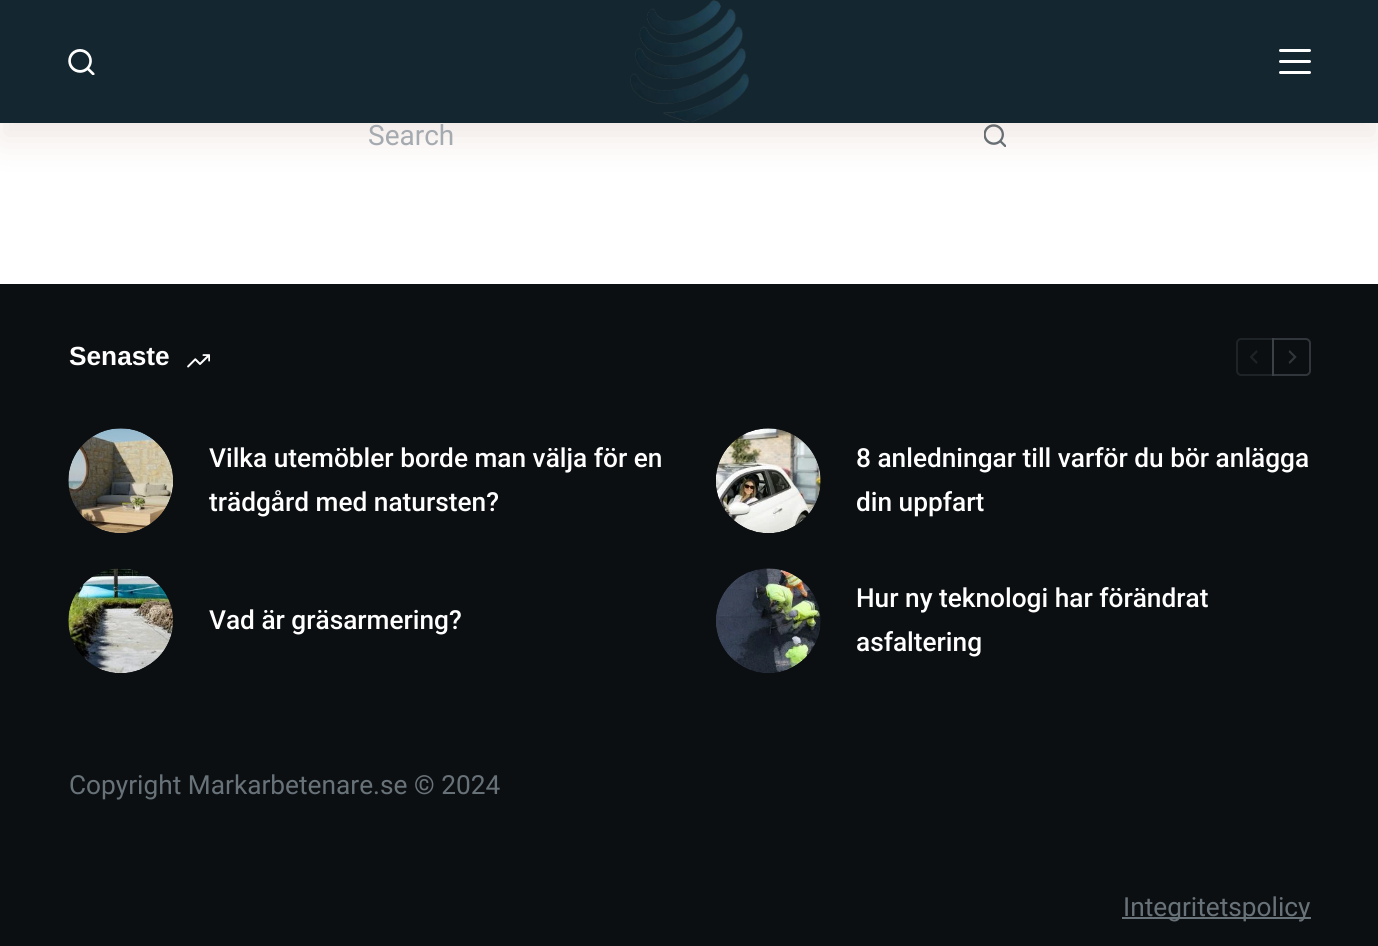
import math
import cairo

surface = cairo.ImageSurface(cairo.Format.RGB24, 1378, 946)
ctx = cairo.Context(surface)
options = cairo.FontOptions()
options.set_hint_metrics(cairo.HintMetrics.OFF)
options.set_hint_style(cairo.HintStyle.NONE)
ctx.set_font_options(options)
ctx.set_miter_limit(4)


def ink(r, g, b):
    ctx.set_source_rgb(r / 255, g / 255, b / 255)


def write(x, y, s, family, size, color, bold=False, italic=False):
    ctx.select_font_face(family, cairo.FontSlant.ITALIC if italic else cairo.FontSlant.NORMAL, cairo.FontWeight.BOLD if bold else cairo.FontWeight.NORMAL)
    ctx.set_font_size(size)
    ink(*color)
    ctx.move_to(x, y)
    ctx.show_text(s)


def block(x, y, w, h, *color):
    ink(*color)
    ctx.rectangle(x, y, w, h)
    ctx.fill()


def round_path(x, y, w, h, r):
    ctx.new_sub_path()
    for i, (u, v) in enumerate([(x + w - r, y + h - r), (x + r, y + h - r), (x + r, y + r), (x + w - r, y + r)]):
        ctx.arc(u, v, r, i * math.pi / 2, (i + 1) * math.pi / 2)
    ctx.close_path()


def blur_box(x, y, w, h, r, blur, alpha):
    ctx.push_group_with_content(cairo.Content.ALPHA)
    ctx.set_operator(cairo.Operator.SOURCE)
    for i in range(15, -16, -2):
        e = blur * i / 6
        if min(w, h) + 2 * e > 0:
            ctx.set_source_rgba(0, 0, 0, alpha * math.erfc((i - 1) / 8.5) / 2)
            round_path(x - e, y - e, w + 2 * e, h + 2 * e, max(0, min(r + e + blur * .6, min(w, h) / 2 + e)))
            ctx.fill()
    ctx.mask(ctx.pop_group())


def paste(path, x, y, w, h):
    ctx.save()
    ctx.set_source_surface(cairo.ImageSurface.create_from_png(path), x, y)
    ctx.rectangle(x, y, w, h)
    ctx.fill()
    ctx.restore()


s1 = dict(family="Roboto", size=28, color=(164, 170, 175))
s2 = dict(family="Liberation Sans", size=26.25, color=(255, 255, 255), bold=True)
s3 = dict(family="Roboto Medium", size=26.25, color=(255, 255, 255))
s4 = dict(family="Roboto", size=26.25, color=(104, 114, 121))

ink(255, 255, 255)
ctx.paint()
paste("pic3.png", 984, 124, 22, 23)
ink(106, 38, 1)
blur_box(0, 18, 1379, 122, 0, 17.5, 0.1)
block(0, 0, 1378, 123, 20, 38, 48)
paste("pic1.png", 68, 49, 27, 26)
paste("pic2.png", 630, 0, 119, 122)
ink(255, 255, 255)
round_path(1279, 49, 32, 3, 1.5)
ctx.fill()
round_path(1279, 60, 32, 3, 1.5)
ctx.fill()
round_path(1279, 71, 32, 3, 1.5)
ctx.fill()
write(368, 145, "Search", **s1)
block(0, 284, 1378, 662, 12, 15, 18)
write(69, 365, "Senaste", **s2)
paste("pic4.png", 187, 354, 23, 14)
ctx.new_path()
ctx.move_to(1241, 339)
ctx.line_to(1273, 339)
ctx.line_to(1273, 375)
ctx.line_to(1241, 375)
ctx.curve_to(1239, 375, 1237, 373, 1237, 371)
ctx.line_to(1237, 343)
ctx.curve_to(1237, 341, 1239, 339, 1241, 339)
ctx.close_path()
ink(30, 35, 39)
ctx.stroke()
paste("pic5.png", 1250, 350, 8, 14)
ctx.new_path()
ctx.move_to(1273, 339)
ctx.line_to(1306, 339)
ctx.curve_to(1308, 339, 1310, 341, 1310, 343)
ctx.line_to(1310, 371)
ctx.curve_to(1310, 373, 1308, 375, 1306, 375)
ctx.line_to(1273, 375)
ctx.close_path()
ctx.set_source_rgba(0.408, 0.447, 0.475, 0.4)
ctx.stroke()
paste("pic6.png", 1288, 350, 9, 14)
paste("pic7.png", 68, 428, 105, 105)
write(209, 467, "Vilka utemöbler borde man välja för en", **s3)
write(209, 511, "trädgård med natursten?", **s3)
paste("pic8.png", 716, 428, 105, 105)
write(856, 467, "8 anledningar till varför du bör anlägga", **s3)
write(856, 511, "din uppfart", **s3)
paste("pic9.png", 68, 568, 105, 105)
write(209, 629, "Vad är gräsarmering?", **s3)
paste("pic10.png", 716, 568, 105, 105)
write(856, 607, "Hur ny teknologi har förändrat", **s3)
write(856, 651, "asfaltering", **s3)
write(69, 794, "Copyright Markarbetenare.se © 2024", **s4)
block(1122, 917, 189, 2, 104, 114, 121)
write(1123, 916, "Integritetspolicy", **s4)
surface.write_to_png("screenshot.png")
